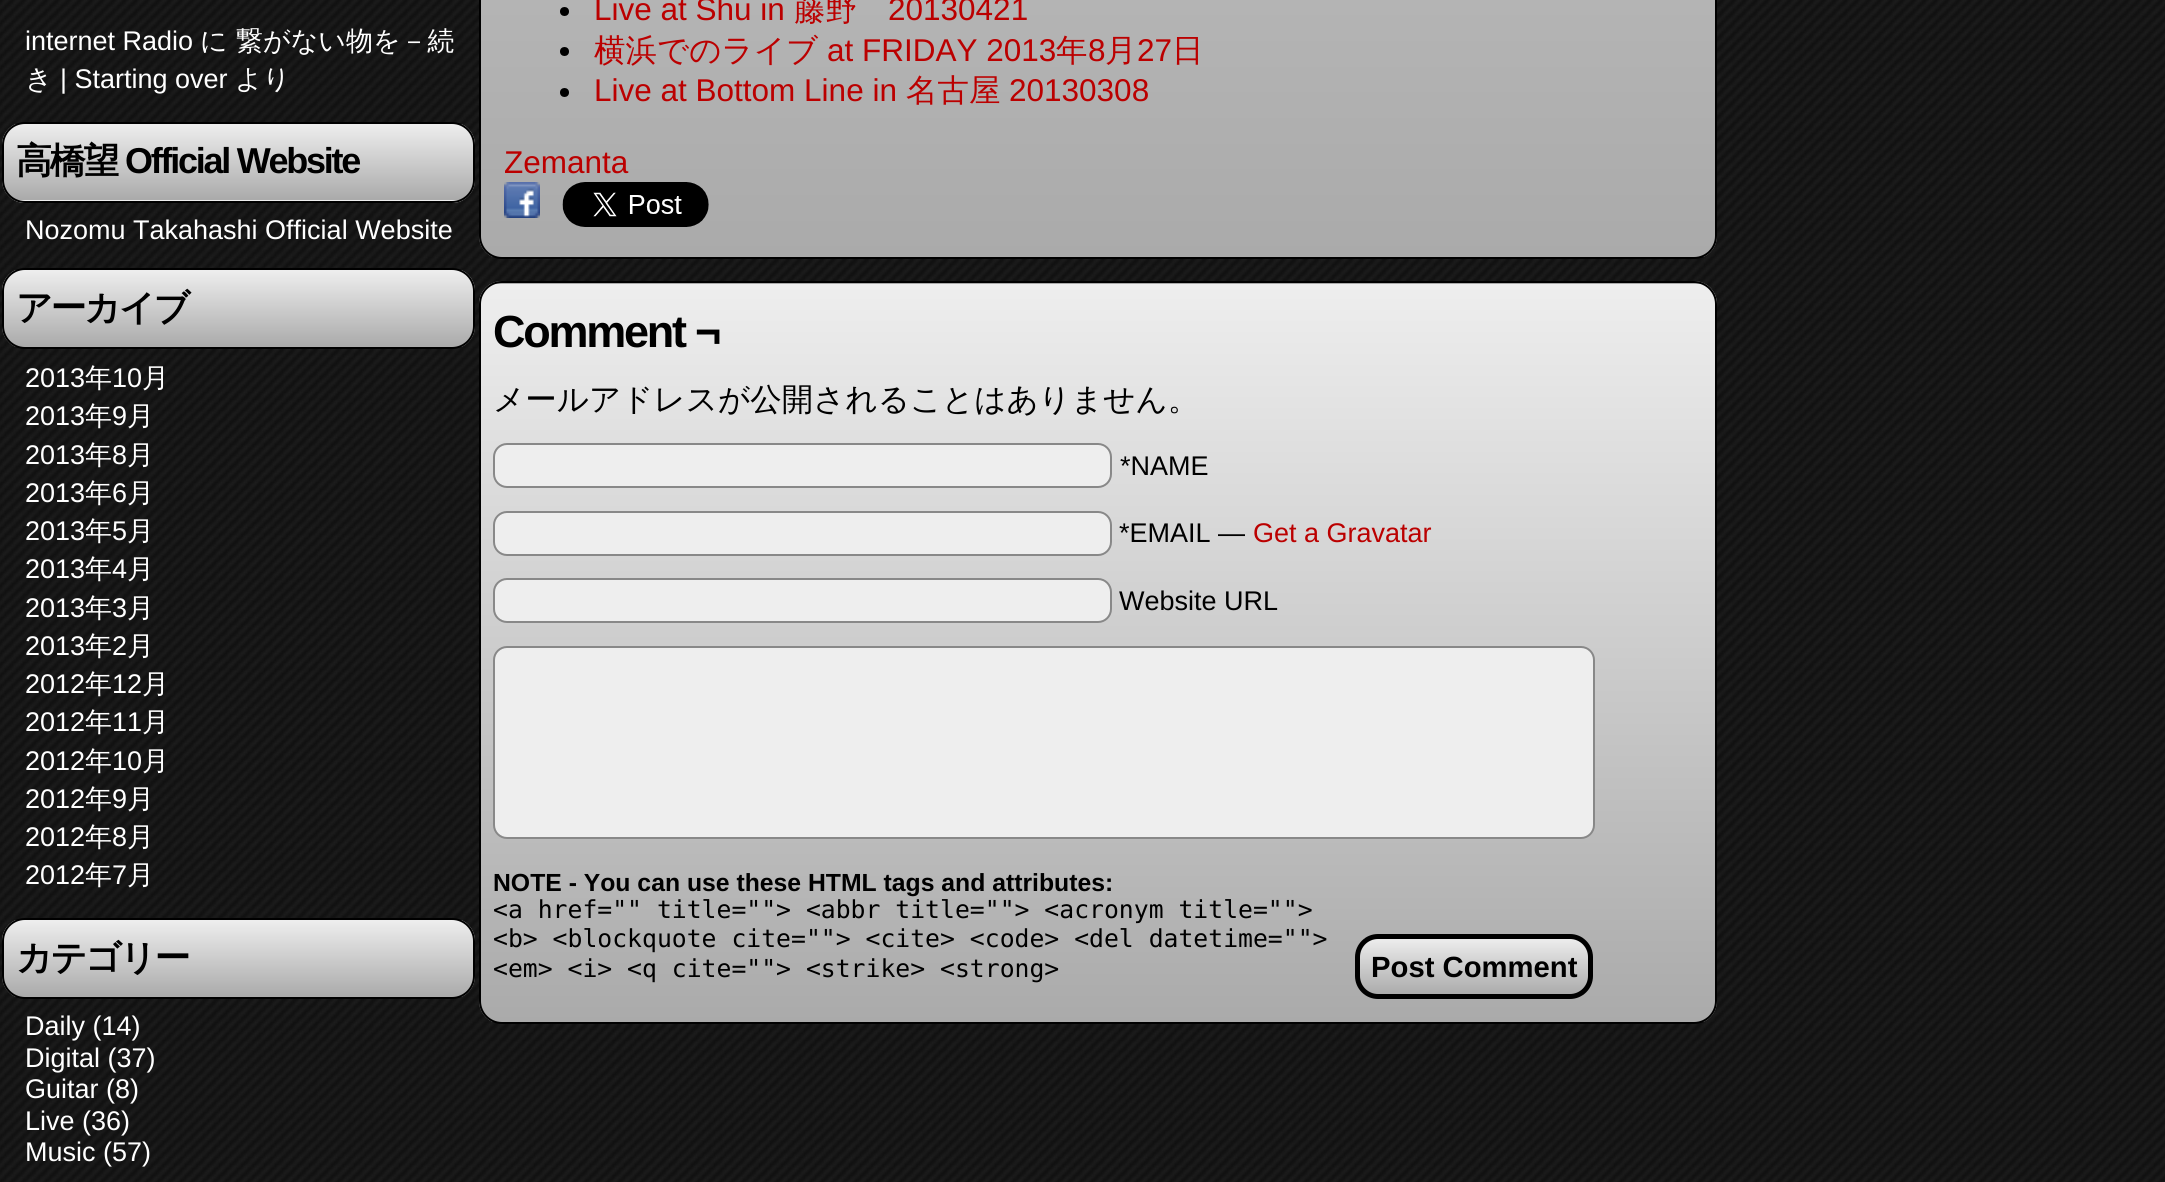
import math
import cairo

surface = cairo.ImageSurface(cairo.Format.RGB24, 2165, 1182)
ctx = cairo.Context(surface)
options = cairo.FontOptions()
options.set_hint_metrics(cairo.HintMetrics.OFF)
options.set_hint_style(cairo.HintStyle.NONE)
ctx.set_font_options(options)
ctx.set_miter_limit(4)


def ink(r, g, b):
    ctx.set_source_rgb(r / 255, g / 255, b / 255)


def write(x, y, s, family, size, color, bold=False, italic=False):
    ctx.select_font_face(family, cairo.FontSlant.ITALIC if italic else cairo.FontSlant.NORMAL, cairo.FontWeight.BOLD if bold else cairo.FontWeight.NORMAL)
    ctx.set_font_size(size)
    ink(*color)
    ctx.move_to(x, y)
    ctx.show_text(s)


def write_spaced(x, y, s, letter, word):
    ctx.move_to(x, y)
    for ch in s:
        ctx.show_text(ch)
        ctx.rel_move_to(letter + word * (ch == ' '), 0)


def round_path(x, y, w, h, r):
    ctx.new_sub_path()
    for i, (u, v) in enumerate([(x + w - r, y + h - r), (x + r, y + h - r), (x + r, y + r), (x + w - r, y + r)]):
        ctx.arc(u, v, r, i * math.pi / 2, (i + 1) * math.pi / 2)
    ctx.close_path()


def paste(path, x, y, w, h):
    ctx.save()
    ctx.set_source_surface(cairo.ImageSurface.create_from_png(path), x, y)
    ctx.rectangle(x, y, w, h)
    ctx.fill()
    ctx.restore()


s1 = dict(family="Liberation Sans", size=27, color=(255, 255, 255))
s2 = dict(family="WenQuanYi Zen Hei Medium", size=27, color=(255, 255, 255))
s3 = dict(family="Liberation Sans", size=31.5, color=(187, 0, 0))
s4 = dict(family="WenQuanYi Zen Hei Medium", size=31.5, color=(187, 0, 0))
s5 = dict(family="WenQuanYi Zen Hei Medium", size=31.5, color=(0, 0, 0))
s6 = dict(family="Liberation Sans", size=27, color=(0, 0, 0))
s7 = dict(family="Liberation Sans", size=27, color=(187, 0, 0))
s8 = dict(family="Liberation Sans", size=24.75, color=(0, 0, 0), bold=True)
s9 = dict(family="DejaVu Sans Mono", size=24.75, color=(0, 0, 0))
s10 = dict(family="Liberation Sans", size=29.25, color=(0, 0, 0), bold=True)

ink(17, 17, 17)
ctx.paint()
paste("pic1.png", 0, 0, 2165, 1182)
write(25, 50, "internet Radio", **s1)
write(200, 50, "に", **s2)
write(236, 50, "繋がない物を－続", **s2)
write(25, 88, "き", **s2)
write(60, 88, "| Starting over", **s1)
write(235, 88, "より", **s2)
ctx.save()
round_path(2, 122, 473, 81, 23)
ctx.clip()
gradient = cairo.LinearGradient(4.5, 124, 4.5, 200)
gradient.add_color_stop_rgba(0, 0.933, 0.933, 0.933, 1)
gradient.add_color_stop_rgba(1, 0.667, 0.667, 0.667, 1)
ctx.set_source(gradient)
ctx.rectangle(2, 124, 473, 76)
ctx.fill()
gradient = cairo.LinearGradient(4.5, 200, 4.5, 277)
gradient.add_color_stop_rgba(0, 0.933, 0.933, 0.933, 1)
gradient.add_color_stop_rgba(1, 0.667, 0.667, 0.667, 1)
ctx.set_source(gradient)
ctx.rectangle(13, 200, 451, 3)
ctx.fill()
ctx.restore()
round_path(3, 123, 471, 79, 22)
ink(0, 0, 0)
ctx.stroke()
ctx.select_font_face("WenQuanYi Zen Hei", cairo.FontSlant.NORMAL, cairo.FontWeight.BOLD)
ctx.set_font_size(36)
write_spaced(16, 173, "高橋望", -2.25, 0)
ctx.select_font_face("Liberation Sans", cairo.FontSlant.NORMAL, cairo.FontWeight.BOLD)
write_spaced(125, 173, "Official Website", -2.25, 0)
write(25, 239, "Nozomu Takahashi Official Website", **s1)
ctx.save()
round_path(2, 268, 473, 81, 23)
ctx.clip()
gradient = cairo.LinearGradient(4.5, 270, 4.5, 347)
gradient.add_color_stop_rgba(0, 0.933, 0.933, 0.933, 1)
gradient.add_color_stop_rgba(1, 0.667, 0.667, 0.667, 1)
ctx.set_source(gradient)
ctx.rectangle(2, 270, 473, 77)
ctx.fill()
ctx.restore()
round_path(3, 269, 471, 79, 22)
ink(0, 0, 0)
ctx.stroke()
ctx.select_font_face("WenQuanYi Zen Hei", cairo.FontSlant.NORMAL, cairo.FontWeight.BOLD)
ctx.set_font_size(36)
write_spaced(16, 320, "アーカイブ", -2.25, 0)
write(25, 387, "2013", **s1)
write(85, 387, "年", **s2)
write(112, 387, "10", **s1)
write(142, 387, "月", **s2)
write(25, 425, "2013", **s1)
write(85, 425, "年", **s2)
write(112, 425, "9", **s1)
write(127, 425, "月", **s2)
write(25, 464, "2013", **s1)
write(85, 464, "年", **s2)
write(112, 464, "8", **s1)
write(127, 464, "月", **s2)
write(25, 502, "2013", **s1)
write(85, 502, "年", **s2)
write(112, 502, "6", **s1)
write(127, 502, "月", **s2)
write(25, 540, "2013", **s1)
write(85, 540, "年", **s2)
write(112, 540, "5", **s1)
write(127, 540, "月", **s2)
write(25, 578, "2013", **s1)
write(85, 578, "年", **s2)
write(112, 578, "4", **s1)
write(127, 578, "月", **s2)
write(25, 617, "2013", **s1)
write(85, 617, "年", **s2)
write(112, 617, "3", **s1)
write(127, 617, "月", **s2)
write(25, 655, "2013", **s1)
write(85, 655, "年", **s2)
write(112, 655, "2", **s1)
write(127, 655, "月", **s2)
write(25, 693, "2012", **s1)
write(85, 693, "年", **s2)
write(112, 693, "12", **s1)
write(142, 693, "月", **s2)
write(25, 731, "2012", **s1)
write(85, 731, "年", **s2)
write(112, 731, "11", **s1)
write(142, 731, "月", **s2)
write(25, 770, "2012", **s1)
write(85, 770, "年", **s2)
write(112, 770, "10", **s1)
write(142, 770, "月", **s2)
write(25, 808, "2012", **s1)
write(85, 808, "年", **s2)
write(112, 808, "9", **s1)
write(127, 808, "月", **s2)
write(25, 846, "2012", **s1)
write(85, 846, "年", **s2)
write(112, 846, "8", **s1)
write(127, 846, "月", **s2)
write(25, 884, "2012", **s1)
write(85, 884, "年", **s2)
write(112, 884, "7", **s1)
write(127, 884, "月", **s2)
ctx.save()
round_path(2, 918, 473, 81, 23)
ctx.clip()
gradient = cairo.LinearGradient(4.5, 920, 4.5, 997)
gradient.add_color_stop_rgba(0, 0.933, 0.933, 0.933, 1)
gradient.add_color_stop_rgba(1, 0.667, 0.667, 0.667, 1)
ctx.set_source(gradient)
ctx.rectangle(2, 920, 473, 77)
ctx.fill()
ctx.restore()
round_path(3, 919, 471, 79, 22)
ink(0, 0, 0)
ctx.stroke()
ctx.select_font_face("WenQuanYi Zen Hei", cairo.FontSlant.NORMAL, cairo.FontWeight.BOLD)
ctx.set_font_size(36)
write_spaced(16, 970, "カテゴリー", -2.25, 0)
write(25, 1035, "Daily (14)", **s1)
write(25, 1067, "Digital (37)", **s1)
write(25, 1098, "Guitar (8)", **s1)
write(25, 1130, "Live (36)", **s1)
write(25, 1161, "Music (57)", **s1)
ctx.save()
round_path(479, -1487, 1238, 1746, 23)
ctx.clip()
gradient = cairo.LinearGradient(482, -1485, 482, 257)
gradient.add_color_stop_rgba(0, 0.933, 0.933, 0.933, 1)
gradient.add_color_stop_rgba(1, 0.667, 0.667, 0.667, 1)
ctx.set_source(gradient)
ctx.rectangle(479, 0, 1238, 257)
ctx.fill()
ctx.restore()
round_path(480, -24, 1236, 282, 22)
ink(0, 0, 0)
ctx.stroke()
ctx.arc(564.5, 11.5, 4.5, 0, 2 * math.pi)
ctx.fill()
write(594, 20, "Live at Shu in", **s3)
write(794, 20, "藤野", **s4)
write(888, 20, "20130421", **s3)
ink(0, 0, 0)
ctx.new_path()
ctx.arc(564.5, 51.5, 4.5, 0, 2 * math.pi)
ctx.fill()
write(594, 61, "横浜でのライブ", **s4)
write(827, 61, "at FRIDAY 2013", **s3)
write(1056, 61, "年", **s4)
write(1088, 61, "8", **s3)
write(1105, 61, "月", **s4)
write(1137, 61, "27", **s3)
write(1172, 61, "日", **s4)
ink(0, 0, 0)
ctx.new_path()
ctx.arc(564.5, 92.5, 4.5, 0, 2 * math.pi)
ctx.fill()
write(594, 101, "Live at Bottom Line in", **s3)
write(906, 101, "名古屋", **s4)
write(1009, 101, "20130308", **s3)
write(504, 173, "Zemanta", **s3)
paste("pic2.png", 504, 182, 36, 36)
paste("pic3.png", 562, 182, 147, 45)
ctx.save()
round_path(479, 281, 1238, 743, 23)
ctx.clip()
gradient = cairo.LinearGradient(482, -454, 482, 284)
gradient.add_color_stop_rgba(0, 0.933, 0.933, 0.933, 1)
gradient.add_color_stop_rgba(1, 0.667, 0.667, 0.667, 1)
ctx.set_source(gradient)
ctx.rectangle(490, 281, 1216, 3)
ctx.fill()
gradient = cairo.LinearGradient(482, 284, 482, 1022)
gradient.add_color_stop_rgba(0, 0.933, 0.933, 0.933, 1)
gradient.add_color_stop_rgba(1, 0.667, 0.667, 0.667, 1)
ctx.set_source(gradient)
ctx.rectangle(479, 284, 1238, 738)
ctx.fill()
ctx.restore()
round_path(480, 282, 1236, 741, 22)
ink(0, 0, 0)
ctx.stroke()
ctx.select_font_face("Liberation Sans", cairo.FontSlant.NORMAL, cairo.FontWeight.BOLD)
ctx.set_font_size(45)
write_spaced(493, 347, "Comment ¬", -2.25, 0)
write(493, 410, "メールアドレスが公開されることはありません。", **s5)
ink(238, 238, 238)
round_path(494, 444, 617, 43, 13)
ctx.fill_preserve()
ink(136, 136, 136)
ctx.stroke()
write(1120, 475, "*NAME", **s6)
ink(238, 238, 238)
round_path(494, 512, 617, 43, 13)
ctx.fill_preserve()
ink(136, 136, 136)
ctx.stroke()
write(1119, 542, "*EMAIL —", **s6)
write(1253, 542, "Get a Gravatar", **s7)
ink(238, 238, 238)
round_path(494, 579, 617, 43, 13)
ctx.fill_preserve()
ink(136, 136, 136)
ctx.stroke()
write(1119, 610, "Website URL", **s6)
ink(238, 238, 238)
round_path(494, 647, 1100, 191, 13)
ctx.fill_preserve()
ink(136, 136, 136)
ctx.stroke()
write(493, 891, "NOTE - You can use these HTML tags and attributes:", **s8)
write(493, 918, "<a href=\"\" title=\"\"> <abbr title=\"\"> <acronym title=\"\">", **s9)
write(493, 947, "<b> <blockquote cite=\"\"> <cite> <code> <del datetime=\"\">", **s9)
write(493, 977, "<em> <i> <q cite=\"\"> <strike> <strong>", **s9)
ctx.save()
round_path(1355, 934, 238, 65, 23)
ctx.clip()
gradient = cairo.LinearGradient(1359, 938, 1359, 995)
gradient.add_color_stop_rgba(0, 0.933, 0.933, 0.933, 1)
gradient.add_color_stop_rgba(1, 0.667, 0.667, 0.667, 1)
ctx.set_source(gradient)
ctx.rectangle(1355, 938, 238, 57)
ctx.fill()
ctx.restore()
round_path(1357.5, 936.5, 233, 60, 20.5)
ctx.set_line_width(5)
ctx.stroke()
write(1371, 977, "Post Comment", **s10)
surface.write_to_png("screenshot.png")
